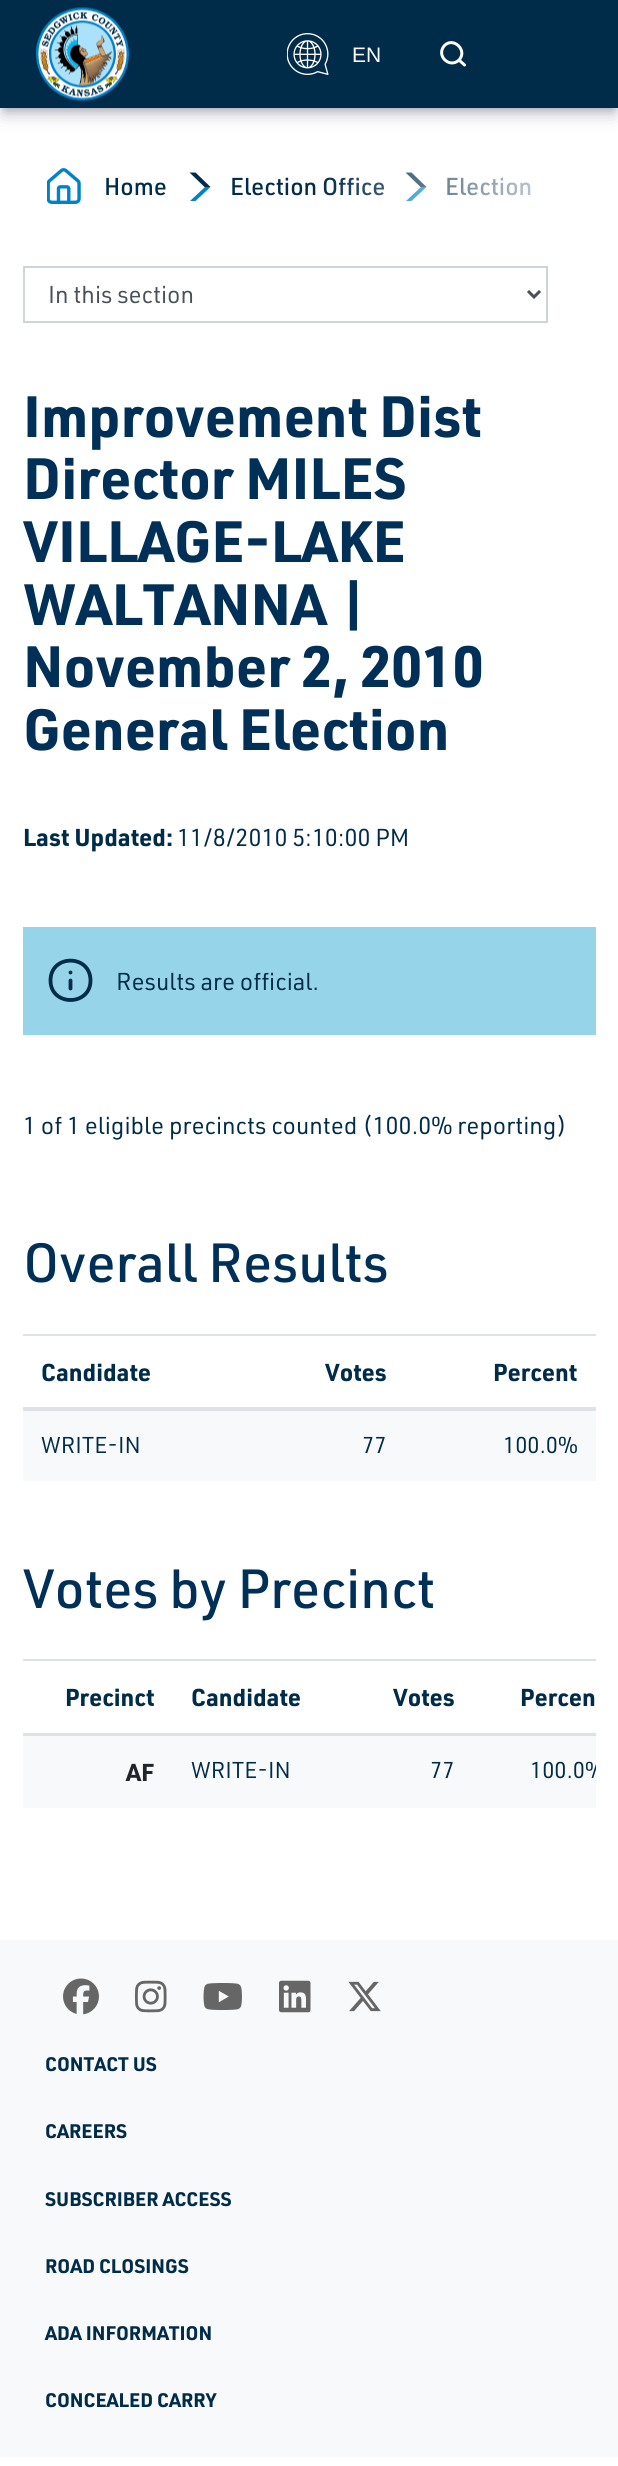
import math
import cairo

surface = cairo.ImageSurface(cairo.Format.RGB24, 618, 2466)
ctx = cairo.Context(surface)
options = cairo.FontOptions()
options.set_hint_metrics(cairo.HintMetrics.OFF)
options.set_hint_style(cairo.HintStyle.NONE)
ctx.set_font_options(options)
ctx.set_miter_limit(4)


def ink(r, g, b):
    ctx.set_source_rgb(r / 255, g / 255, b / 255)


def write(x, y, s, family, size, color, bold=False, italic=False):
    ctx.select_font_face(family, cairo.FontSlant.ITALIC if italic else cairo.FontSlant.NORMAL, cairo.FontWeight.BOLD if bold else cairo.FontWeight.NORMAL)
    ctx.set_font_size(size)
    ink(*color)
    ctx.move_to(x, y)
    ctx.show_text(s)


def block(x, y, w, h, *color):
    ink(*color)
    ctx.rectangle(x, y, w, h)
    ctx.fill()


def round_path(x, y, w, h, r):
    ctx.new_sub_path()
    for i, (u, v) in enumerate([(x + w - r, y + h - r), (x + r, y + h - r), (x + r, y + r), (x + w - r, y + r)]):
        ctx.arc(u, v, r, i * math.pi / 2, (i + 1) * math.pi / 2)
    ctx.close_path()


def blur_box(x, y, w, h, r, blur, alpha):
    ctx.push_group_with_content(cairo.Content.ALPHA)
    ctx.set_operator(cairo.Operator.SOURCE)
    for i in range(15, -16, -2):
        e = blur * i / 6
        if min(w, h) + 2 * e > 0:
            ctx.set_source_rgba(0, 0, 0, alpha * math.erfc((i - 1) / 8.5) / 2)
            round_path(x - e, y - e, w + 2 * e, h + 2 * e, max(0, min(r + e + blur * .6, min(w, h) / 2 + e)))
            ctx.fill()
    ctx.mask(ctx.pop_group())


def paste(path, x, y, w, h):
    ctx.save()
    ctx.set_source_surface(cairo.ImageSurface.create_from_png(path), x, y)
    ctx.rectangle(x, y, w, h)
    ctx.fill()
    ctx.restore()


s1 = dict(family="Liberation Sans", size=21, color=(255, 255, 255))
s2 = dict(family="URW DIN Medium", size=24, color=(0, 43, 73))
s3 = dict(family="URW DIN", size=24, color=(73, 80, 87))
s4 = dict(family="URW DIN", size=57, color=(0, 48, 87), bold=True)
s5 = dict(family="URW DIN", size=24, color=(0, 43, 73), bold=True)
s6 = dict(family="URW DIN", size=24, color=(0, 43, 73))
s7 = dict(family="URW DIN Medium", size=54, color=(0, 48, 87))
s8 = dict(family="URW DIN", size=22.5, color=(0, 43, 73))
s9 = dict(family="URW DIN", size=24, color=(33, 37, 41), bold=True)
s10 = dict(family="URW DIN", size=19.25, color=(0, 43, 73), bold=True)

ink(255, 255, 255)
ctx.paint()
ink(0, 0, 0)
blur_box(5, 9, 609, 99, 0, 5, 0.3)
ink(50, 50, 93)
blur_box(3, 12, 612, 102, 0, 9, 0.25)
block(0, 0, 618, 108, 0, 43, 73)
paste("pic1.png", 36, 7, 93, 94)
paste("pic2.png", 287, 33, 42, 42)
write(352, 62, "EN", **s1)
ctx.new_path()
ctx.move_to(464.5, 65)
ctx.line_to(459, 60)
ctx.move_to(459, 60)
ctx.curve_to(468, 50.5, 453.5, 36.5, 444.5, 45.5)
ctx.curve_to(435.5, 55.5, 449.5, 69, 459, 60)
ctx.close_path()
ctx.set_line_width(3)
ctx.set_line_cap(cairo.LineCap.ROUND)
ctx.set_line_join(cairo.LineJoin.ROUND)
ctx.stroke()
paste("pic3.png", 47, 168, 34, 36)
write(104, 195, "Home", **s2)
ctx.new_path()
ctx.move_to(204.5, 187)
ctx.line_to(210.5, 187)
ctx.line_to(195.5, 172.5)
ctx.line_to(189.5, 172.5)
ctx.close_path()
ctx.fill()
ink(0, 130, 202)
ctx.new_path()
ctx.move_to(205, 187)
ctx.line_to(210.5, 187)
ctx.line_to(195.5, 201)
ctx.line_to(190, 201)
ctx.close_path()
ctx.fill()
write(230, 195, "Election Office", **s2)
ctx.new_path()
ctx.move_to(420.5, 187)
ctx.line_to(426.5, 187)
ctx.line_to(411.5, 172.5)
ctx.line_to(405.5, 172.5)
ctx.close_path()
ctx.fill()
ink(0, 130, 202)
ctx.new_path()
ctx.move_to(421, 187)
ctx.line_to(426.5, 187)
ctx.line_to(411.5, 201)
ctx.line_to(406, 201)
ctx.close_path()
ctx.fill()
write(445, 195, "Election", **s2)
gradient = cairo.LinearGradient(318, 194, 618, 194)
gradient.add_color_stop_rgba(0, 1, 1, 1, 0)
gradient.add_color_stop_rgba(1, 1, 1, 1, 1)
ctx.set_source(gradient)
ctx.rectangle(324, 172, 207, 29)
ctx.fill()
ctx.rectangle(24, 267, 523, 55)
ink(206, 212, 218)
ctx.set_line_width(2)
ctx.set_line_cap(cairo.LineCap.BUTT)
ctx.set_line_join(cairo.LineJoin.MITER)
ctx.stroke()
ctx.new_path()
ctx.move_to(528, 291)
ctx.line_to(534, 297)
ctx.line_to(540, 291)
ink(73, 80, 87)
ctx.set_line_width(3)
ctx.stroke()
write(48, 303, "In this section", **s3)
write(23, 437, "Improvement Dist", **s4)
write(23, 499, "Director MILES", **s4)
write(23, 562, "VILLAGE-LAKE", **s4)
write(23, 625, "WALTANNA |", **s4)
write(23, 687, "November 2, 2010", **s4)
write(23, 750, "General Election", **s4)
write(23, 846, "Last Updated:", **s5)
write(177, 846, "11/8/2010 5:10:00 PM", **s6)
block(23, 927, 573, 108, 149, 212, 233)
ctx.new_path()
ctx.move_to(70.5, 988.5)
ctx.line_to(70.5, 980.5)
ctx.move_to(70.5, 972.5)
ctx.line_to(70.5, 972.5)
ctx.move_to(50.5, 980.5)
ctx.curve_to(50.5, 954, 90.5, 954, 90.5, 980.5)
ctx.curve_to(90.5, 1006.5, 50.5, 1006.5, 50.5, 980.5)
ctx.close_path()
ink(0, 43, 73)
ctx.set_line_width(3.8)
ctx.set_line_cap(cairo.LineCap.ROUND)
ctx.set_line_join(cairo.LineJoin.ROUND)
ctx.stroke()
write(116, 990, "Results are official.", **s6)
write(23, 1134, "1 of 1 eligible precincts counted (100.0% reporting)", **s6)
write(23, 1282, "Overall Results", **s7)
write(41, 1381, "Candidate", **s5)
write(325, 1381, "Votes", **s5)
block(23, 1334, 573, 2, 222, 226, 230)
block(23, 1407, 573, 3, 222, 226, 230)
write(493, 1381, "Percent", **s5)
block(23, 1411, 573, 70, 248, 249, 250)
write(41, 1453, "WRITE-IN", **s8)
write(362, 1453, "77", **s8)
block(23, 1410, 573, 1, 222, 226, 230)
write(503, 1453, "100.0%", **s8)
write(23, 1608, "Votes by Precinct", **s7)
write(65, 1706, "Precinct", **s5)
write(191, 1706, "Candidate", **s5)
write(393, 1706, "Votes", **s5)
block(23, 1659, 573, 2, 222, 226, 230)
block(23, 1733, 573, 3, 222, 226, 230)
write(520, 1706, "Percen", **s5)
block(23, 1736, 573, 72, 248, 249, 250)
write(126, 1781, "AF", **s9)
write(191, 1778, "WRITE-IN", **s8)
write(430, 1778, "77", **s8)
ctx.save()
ctx.rectangle(23, 1541, 573, 291)
ctx.clip()
write(530, 1778, "100.0%", **s8)
ctx.restore()
block(0, 1940, 618, 517, 248, 249, 250)
paste("pic4.png", 63, 1978, 36, 37)
paste("pic5.png", 135, 1980, 32, 33)
paste("pic6.png", 203, 1983, 39, 27)
paste("pic7.png", 279, 1980, 32, 33)
paste("pic8.png", 348, 1981, 33, 31)
write(45, 2071, "CONTACT US", **s10)
write(45, 2138, "CAREERS", **s10)
write(45, 2206, "SUBSCRIBER ACCESS", **s10)
write(45, 2273, "ROAD CLOSINGS", **s10)
write(45, 2340, "ADA INFORMATION", **s10)
write(45, 2407, "CONCEALED CARRY", **s10)
surface.write_to_png("screenshot.png")
